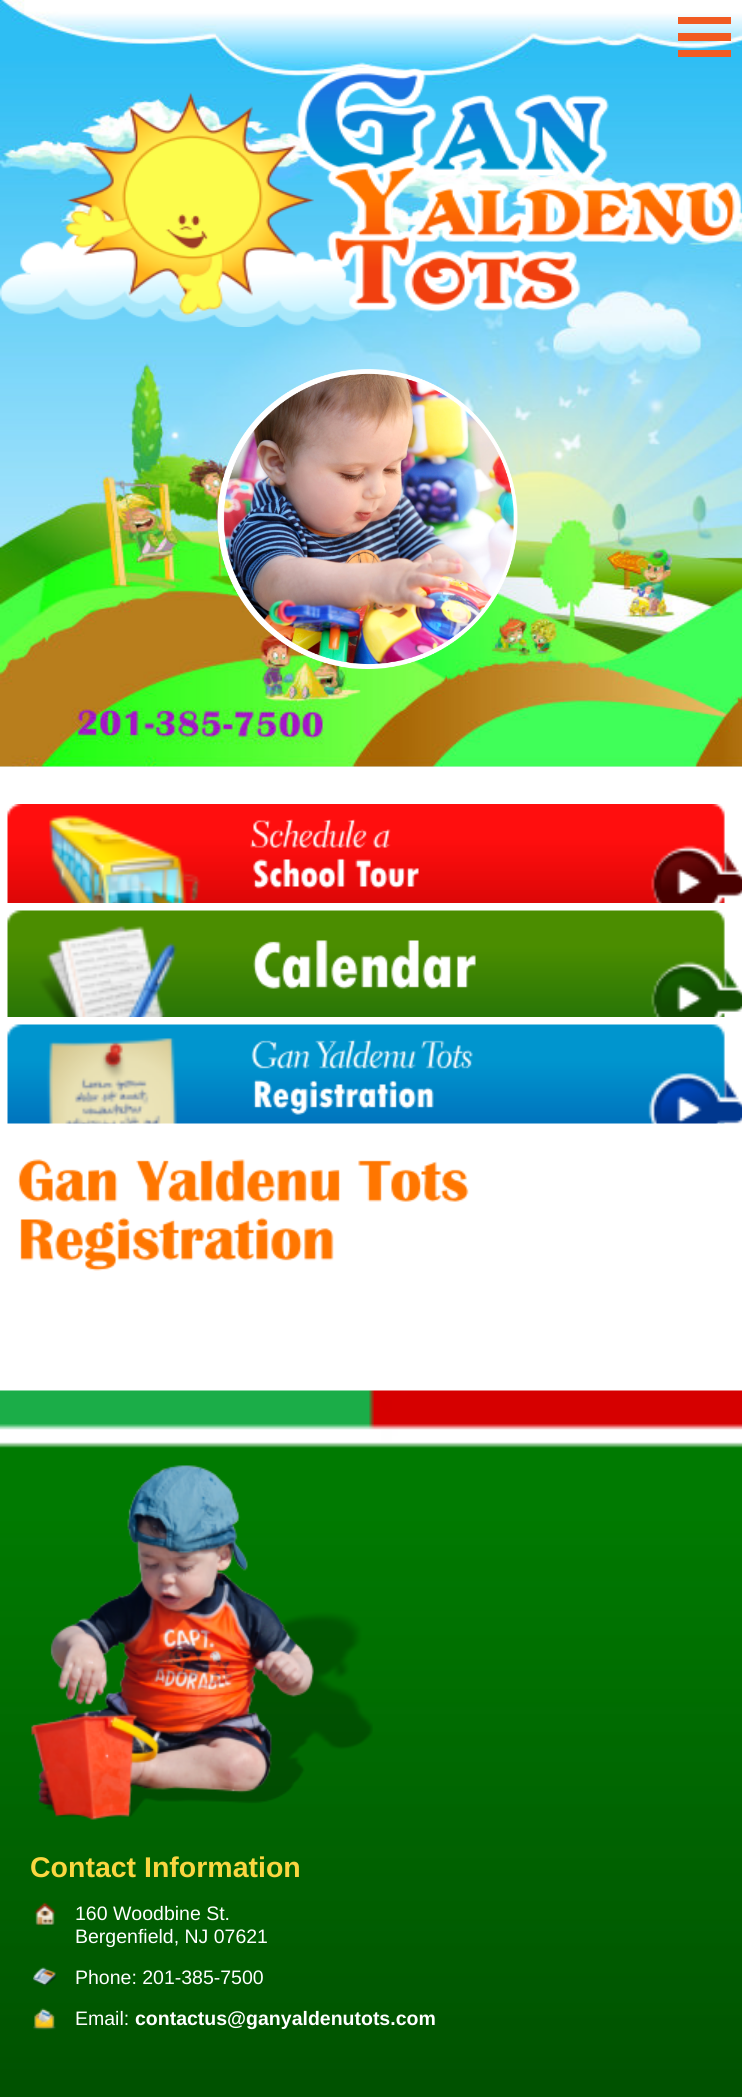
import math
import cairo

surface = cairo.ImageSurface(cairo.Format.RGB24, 742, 2097)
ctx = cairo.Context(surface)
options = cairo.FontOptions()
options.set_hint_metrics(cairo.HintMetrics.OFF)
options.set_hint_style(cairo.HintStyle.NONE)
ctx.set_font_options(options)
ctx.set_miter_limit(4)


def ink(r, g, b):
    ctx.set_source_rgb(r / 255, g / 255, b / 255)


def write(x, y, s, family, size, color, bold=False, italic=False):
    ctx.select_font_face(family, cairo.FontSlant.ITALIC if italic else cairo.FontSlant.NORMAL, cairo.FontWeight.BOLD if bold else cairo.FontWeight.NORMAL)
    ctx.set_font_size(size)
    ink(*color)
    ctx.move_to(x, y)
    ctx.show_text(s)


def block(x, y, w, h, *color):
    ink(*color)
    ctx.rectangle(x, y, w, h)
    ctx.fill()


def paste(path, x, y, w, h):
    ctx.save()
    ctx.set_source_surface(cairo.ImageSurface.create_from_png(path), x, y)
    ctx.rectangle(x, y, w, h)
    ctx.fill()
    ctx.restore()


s1 = dict(family="Liberation Sans", size=28.5, color=(250, 214, 65), bold=True)
s2 = dict(family="Liberation Sans", size=19.5, color=(255, 255, 255))
s3 = dict(family="Liberation Sans", size=19.5, color=(255, 255, 255), bold=True)

ink(255, 255, 255)
ctx.paint()
paste("pic1.png", 0, 766, 742, 1)
paste("pic2.png", 0, 0, 742, 767)
paste("pic3.png", 0, 67, 742, 260)
paste("pic4.png", 217, 369, 301, 300)
block(678, 17, 53, 7, 241, 91, 34)
block(678, 33, 53, 8, 241, 91, 34)
block(678, 50, 53, 7, 241, 91, 34)
paste("pic5.png", 7, 804, 735, 99)
paste("pic6.png", 250, 819, 117, 29)
paste("pic7.png", 373, 829, 18, 19)
paste("pic8.png", 253, 858, 93, 31)
paste("pic9.png", 355, 859, 64, 30)
paste("pic10.png", 7, 910, 735, 107)
paste("pic11.png", 253, 940, 223, 49)
paste("pic12.png", 7, 1024, 735, 100)
paste("pic13.png", 251, 1040, 59, 29)
paste("pic14.png", 315, 1039, 101, 30)
paste("pic15.png", 421, 1040, 52, 29)
paste("pic16.png", 253, 1079, 181, 36)
paste("pic17.png", 18, 1159, 100, 43)
paste("pic18.png", 136, 1159, 204, 43)
paste("pic19.png", 358, 1160, 111, 42)
paste("pic20.png", 20, 1217, 314, 54)
paste("pic21.png", 0, 1390, 742, 707)
paste("pic22.png", 31, 1465, 342, 355)
write(30, 1877, "Contact Information", **s1)
paste("pic23.png", 34, 1902, 22, 24)
write(75, 1920, "160 Woodbine St.", **s2)
write(75, 1943, "Bergenfield, NJ 07621", **s2)
paste("pic24.png", 33, 1967, 24, 19)
write(75, 1984, "Phone: 201-385-7500", **s2)
paste("pic25.png", 33, 2008, 23, 22)
write(75, 2025, "Email:", **s2)
write(135, 2025, "contactus@ganyaldenutots.com", **s3)
surface.write_to_png("screenshot.png")
